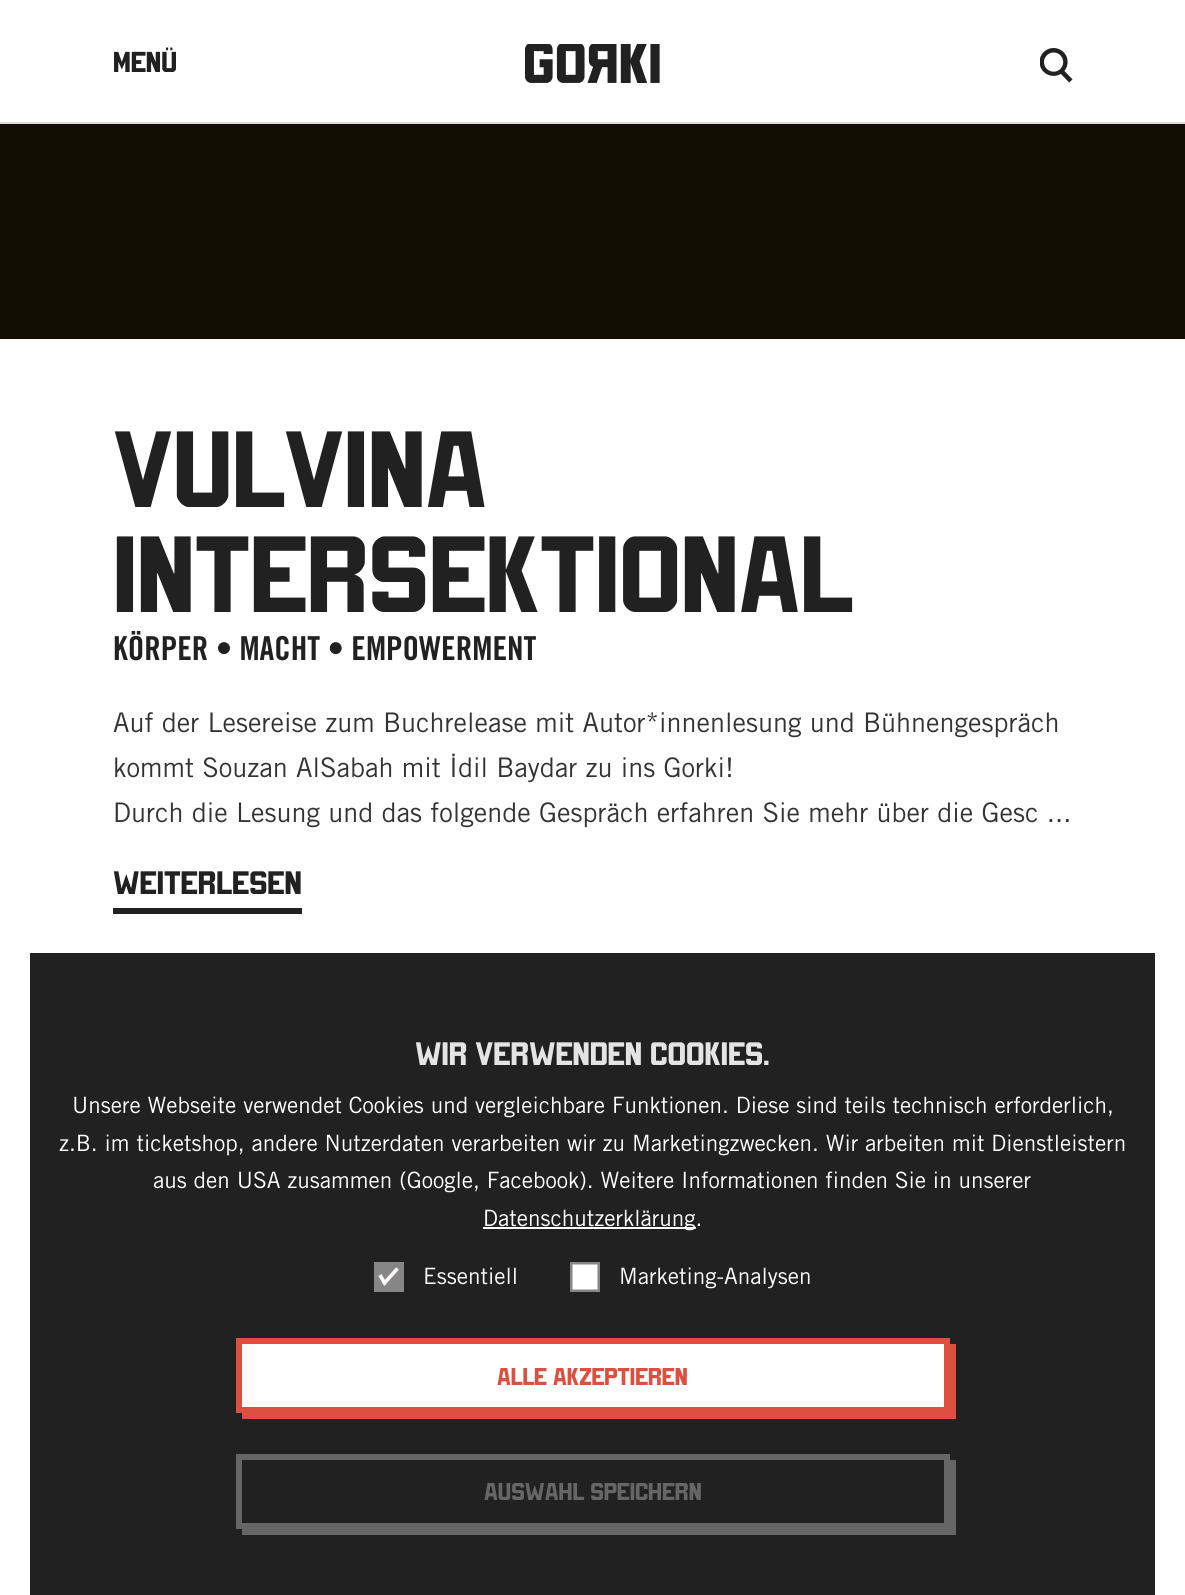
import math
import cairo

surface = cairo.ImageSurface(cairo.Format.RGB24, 1185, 1595)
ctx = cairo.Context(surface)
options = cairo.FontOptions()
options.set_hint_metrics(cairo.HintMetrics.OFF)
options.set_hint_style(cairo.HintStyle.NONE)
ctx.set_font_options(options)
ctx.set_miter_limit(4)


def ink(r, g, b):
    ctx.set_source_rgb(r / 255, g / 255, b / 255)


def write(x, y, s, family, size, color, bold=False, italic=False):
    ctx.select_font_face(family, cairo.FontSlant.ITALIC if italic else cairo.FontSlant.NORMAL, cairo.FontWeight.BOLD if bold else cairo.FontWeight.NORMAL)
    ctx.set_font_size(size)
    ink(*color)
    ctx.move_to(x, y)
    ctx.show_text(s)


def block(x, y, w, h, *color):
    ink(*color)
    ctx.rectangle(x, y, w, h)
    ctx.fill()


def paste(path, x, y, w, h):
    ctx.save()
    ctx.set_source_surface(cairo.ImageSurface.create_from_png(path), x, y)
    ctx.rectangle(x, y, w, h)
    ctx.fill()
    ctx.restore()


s1 = dict(family="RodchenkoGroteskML", size=32, color=(33, 33, 33))
s2 = dict(family="RodchenkoGroteskML", size=120, color=(33, 33, 33))
s3 = dict(family="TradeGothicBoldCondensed", size=33, color=(33, 33, 33), bold=True)
s4 = dict(family="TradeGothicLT", size=27, color=(51, 51, 51))
s5 = dict(family="RodchenkoGroteskML", size=36, color=(33, 33, 33))
s6 = dict(family="RodchenkoGroteskML", size=36, color=(228, 228, 228))
s7 = dict(family="TradeGothicLT", size=22.5, color=(255, 255, 255))
s8 = dict(family="RodchenkoGroteskML", size=27, color=(221, 79, 63))
s9 = dict(family="RodchenkoGroteskML", size=27, color=(102, 102, 102))

ink(255, 255, 255)
ctx.paint()
write(113, 72, "Menü", **s1)
paste("pic1.png", 525, 44, 135, 39)
paste("pic2.png", 1040, 48, 33, 35)
block(0, 122, 1185, 2, 221, 221, 221)
block(0, 124, 1185, 215, 19, 14, 4)
write(113, 507, "Vulvina", **s2)
write(113, 612, "Intersektional", **s2)
write(113, 660, "KÖRPER • MACHT • EMPOWERMENT", **s3)
write(113, 732, "Auf der Lesereise zum Buchrelease mit Autor*innenlesung und Bühnengespräch", **s4)
write(113, 777, "kommt Souzan AlSabah mit İdil Baydar zu ins Gorki!", **s4)
write(113, 822, "Durch die Lesung und das folgende Gespräch erfahren Sie mehr über die Gesc ...", **s4)
write(113, 894, "WEITERLESEN", **s5)
block(113, 908, 189, 6, 33, 33, 33)
block(30, 953, 1125, 642, 33, 33, 33)
write(415, 1065, "Wir verwenden Cookies.", **s6)
write(72, 1113, "Unsere Webseite verwendet Cookies und vergleichbare Funktionen. Diese sind teils technisch erforderlich,", **s7)
write(59, 1151, "z.B. im ticketshop, andere Nutzerdaten verarbeiten wir zu Marketingzwecken. Wir arbeiten mit Dienstleistern", **s7)
write(153, 1188, "aus den USA zusammen (Google, Facebook). Weitere Informationen finden Sie in unserer", **s7)
block(483, 1227, 213, 2, 255, 255, 255)
write(483, 1226, "Datenschutzerklärung.", **s7)
block(374, 1262, 30, 30, 134, 134, 134)
ctx.new_path()
ctx.move_to(380, 1275)
ctx.line_to(384.5, 1283)
ctx.line_to(397.5, 1268.5)
ink(255, 250, 250)
ctx.set_line_width(3.6)
ctx.stroke()
write(423, 1284, "Essentiell", **s7)
ctx.rectangle(571.25, 1263.25, 27.5, 27.5)
ctx.fill_preserve()
ink(134, 134, 134)
ctx.set_line_width(2.5)
ctx.stroke()
write(619, 1284, "Marketing-Analysen", **s7)
ink(221, 79, 63)
ctx.new_path()
ctx.move_to(242, 1413)
ctx.line_to(242, 1419)
ctx.line_to(956, 1419)
ctx.line_to(956, 1344)
ctx.line_to(950, 1344)
ctx.line_to(950, 1413)
ctx.close_path()
ctx.fill()
ink(255, 255, 255)
ctx.rectangle(239, 1341, 708, 69)
ctx.fill_preserve()
ink(221, 79, 63)
ctx.set_line_width(6)
ctx.stroke()
write(497, 1385, "Alle akzeptieren", **s8)
ink(102, 102, 102)
ctx.new_path()
ctx.move_to(242, 1528)
ctx.line_to(242, 1535)
ctx.line_to(956, 1535)
ctx.line_to(956, 1460)
ctx.line_to(950, 1460)
ctx.line_to(950, 1528)
ctx.close_path()
ctx.fill()
ctx.rectangle(239, 1457, 708, 69)
ctx.stroke()
write(484, 1500, "Auswahl speichern", **s9)
surface.write_to_png("screenshot.png")
